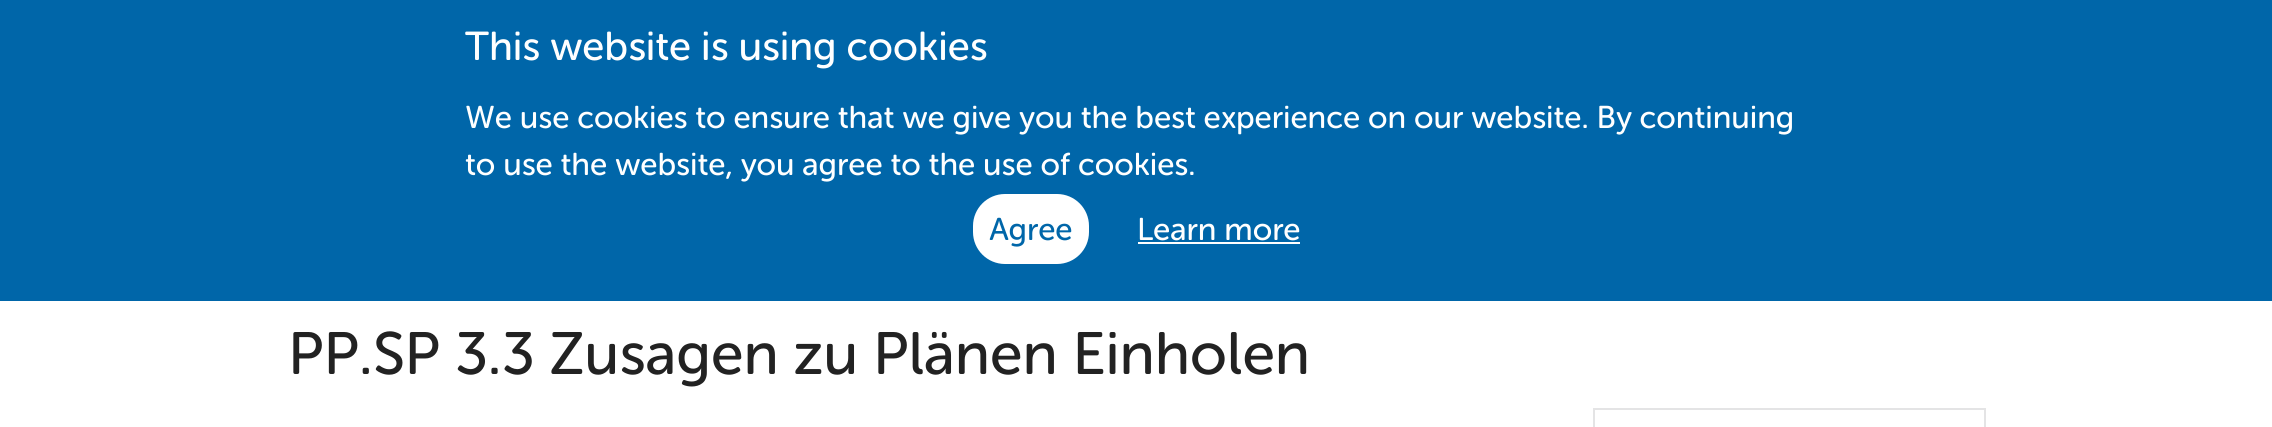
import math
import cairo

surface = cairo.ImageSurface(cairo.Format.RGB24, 2272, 427)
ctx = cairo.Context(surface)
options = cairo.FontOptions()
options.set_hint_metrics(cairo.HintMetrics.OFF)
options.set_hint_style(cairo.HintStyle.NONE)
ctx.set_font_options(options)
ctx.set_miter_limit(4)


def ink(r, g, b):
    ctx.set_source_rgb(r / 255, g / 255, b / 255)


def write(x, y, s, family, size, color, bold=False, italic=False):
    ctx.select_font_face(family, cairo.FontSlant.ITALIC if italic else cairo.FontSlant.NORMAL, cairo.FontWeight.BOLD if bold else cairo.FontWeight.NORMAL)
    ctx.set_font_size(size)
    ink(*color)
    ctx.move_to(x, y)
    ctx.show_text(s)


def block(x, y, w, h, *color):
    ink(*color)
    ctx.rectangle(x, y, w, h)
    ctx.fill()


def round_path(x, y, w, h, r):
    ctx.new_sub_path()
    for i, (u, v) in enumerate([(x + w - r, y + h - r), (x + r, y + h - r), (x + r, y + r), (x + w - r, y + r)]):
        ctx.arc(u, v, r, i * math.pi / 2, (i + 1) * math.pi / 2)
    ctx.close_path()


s1 = dict(family="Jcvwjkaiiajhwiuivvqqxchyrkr", size=40.25, color=(255, 255, 255))
s2 = dict(family="Jcvwjkaiiajhwiuivvqqxchyrkr", size=31.5, color=(255, 255, 255))
s3 = dict(family="Jcvwjkaiiajhwiuivvqqxchyrkr", size=31.5, color=(0, 102, 169))
s4 = dict(family="Jcvwjkaiiajhwiuivvqqxchyrkr", size=59.5, color=(34, 34, 34))

ink(255, 255, 255)
ctx.paint()
block(0, 0, 2272, 301, 0, 102, 169)
write(465, 60, "This website is using cookies", **s1)
write(465, 128, "We use cookies to ensure that we give you the best experience on our website. By continuing", **s2)
write(465, 175, "to use the website, you agree to the use of cookies.", **s2)
round_path(973, 194, 116, 70, 32)
ctx.fill()
write(989, 240, "Agree", **s3)
write(1137, 240, "Learn more", **s2)
block(1138, 242, 162, 2, 255, 255, 255)
write(288, 374, "PP.SP 3.3 Zusagen zu Plänen Einholen", **s4)
ctx.rectangle(1594, 409, 391, 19)
ink(228, 228, 229)
ctx.stroke()
surface.write_to_png("screenshot.png")
